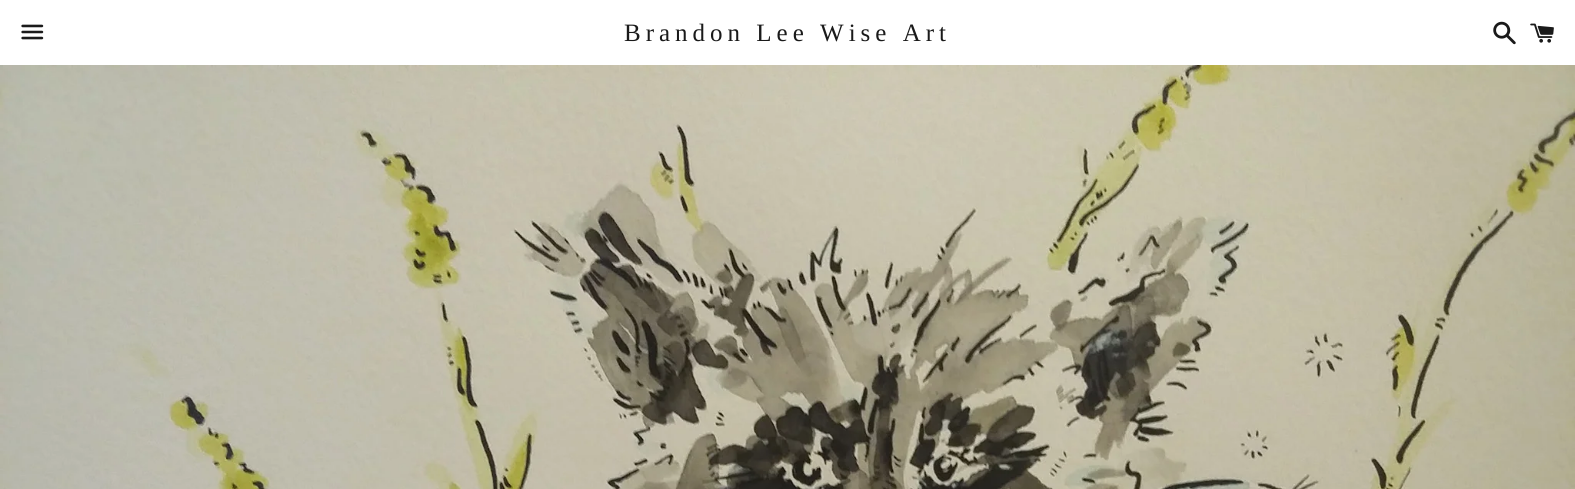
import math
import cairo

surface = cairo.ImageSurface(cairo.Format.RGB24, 1575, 489)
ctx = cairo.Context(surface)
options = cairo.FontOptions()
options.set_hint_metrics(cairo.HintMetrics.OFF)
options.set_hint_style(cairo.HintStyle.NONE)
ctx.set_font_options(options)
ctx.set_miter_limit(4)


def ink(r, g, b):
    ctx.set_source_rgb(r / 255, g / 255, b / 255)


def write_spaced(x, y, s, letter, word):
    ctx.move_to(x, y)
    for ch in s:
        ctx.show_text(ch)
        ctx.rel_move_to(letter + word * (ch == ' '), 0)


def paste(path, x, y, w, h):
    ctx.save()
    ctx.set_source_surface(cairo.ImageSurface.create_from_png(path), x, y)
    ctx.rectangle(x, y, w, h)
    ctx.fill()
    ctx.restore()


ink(255, 255, 255)
ctx.paint()
paste("pic1.png", 21, 24, 23, 16)
ctx.select_font_face("Liberation Serif")
ctx.set_font_size(25)
ink(26, 26, 26)
write_spaced(624, 41, "Brandon Lee Wise Art", 5, 0)
paste("pic2.png", 1493, 21, 23, 24)
paste("pic3.png", 1530, 23, 24, 20)
paste("pic4.png", 0, 65, 1575, 424)
surface.write_to_png("screenshot.png")
